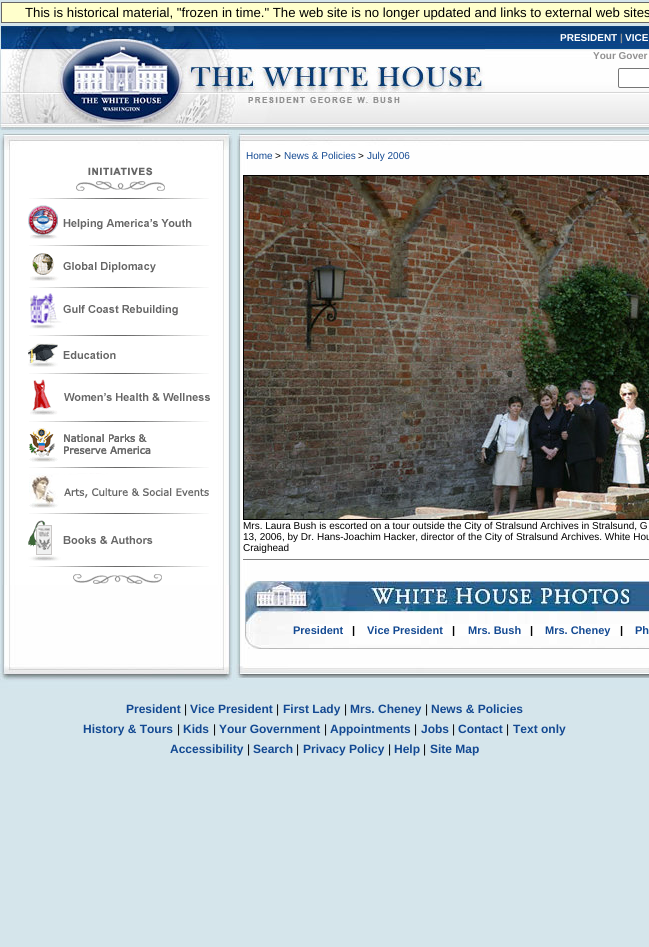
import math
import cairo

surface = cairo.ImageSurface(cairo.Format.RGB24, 649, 947)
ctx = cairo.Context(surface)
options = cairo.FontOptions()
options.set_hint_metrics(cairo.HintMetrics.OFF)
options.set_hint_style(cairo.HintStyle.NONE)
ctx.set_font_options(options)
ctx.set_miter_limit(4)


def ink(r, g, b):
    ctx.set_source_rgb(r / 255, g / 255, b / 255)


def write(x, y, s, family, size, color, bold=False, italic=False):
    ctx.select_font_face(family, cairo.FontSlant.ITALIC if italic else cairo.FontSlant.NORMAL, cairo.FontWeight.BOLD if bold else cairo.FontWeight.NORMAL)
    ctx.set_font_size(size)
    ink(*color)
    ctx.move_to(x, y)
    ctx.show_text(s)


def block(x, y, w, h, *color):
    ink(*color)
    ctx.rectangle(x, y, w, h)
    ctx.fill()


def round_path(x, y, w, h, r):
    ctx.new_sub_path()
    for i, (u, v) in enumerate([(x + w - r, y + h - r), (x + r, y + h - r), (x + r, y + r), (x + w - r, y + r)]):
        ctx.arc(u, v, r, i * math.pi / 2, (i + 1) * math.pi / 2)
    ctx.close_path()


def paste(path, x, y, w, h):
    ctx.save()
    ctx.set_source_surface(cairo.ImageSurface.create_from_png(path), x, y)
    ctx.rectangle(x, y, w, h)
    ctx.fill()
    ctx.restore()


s1 = dict(family="Liberation Sans", size=13.2, color=(0, 0, 0))
s2 = dict(family="Liberation Sans", size=10, color=(255, 255, 255), bold=True)
s3 = dict(family="Liberation Sans", size=10, color=(145, 144, 144), bold=True)
s4 = dict(family="Liberation Sans", size=10, color=(19, 73, 146))
s5 = dict(family="Liberation Sans", size=10, color=(0, 0, 0))
s6 = dict(family="Liberation Sans", size=11, color=(19, 73, 146), bold=True)
s7 = dict(family="Liberation Sans", size=11, color=(0, 0, 0), bold=True)
s8 = dict(family="Liberation Sans", size=12, color=(19, 73, 146), bold=True)
s9 = dict(family="Liberation Sans", size=12, color=(0, 0, 0))

ink(213, 229, 235)
ctx.paint()
ink(255, 255, 204)
ctx.rectangle(1.5, 2.5, 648, 20)
ctx.fill_preserve()
ink(102, 102, 102)
ctx.set_line_width(1)
ctx.stroke()
write(25, 17, "This is historical material, \"frozen in time.\" The web site is no longer updated and links to external web sites", **s1)
paste("pic1.png", 485, 26, 164, 104)
paste("pic2.png", 0, 26, 485, 104)
write(560, 41, "PRESIDENT", **s2)
write(620, 41, "|", **s3)
write(625, 41, "VICE", **s2)
write(593, 59, "Your Gover", **s3)
ink(255, 255, 255)
round_path(618.5, 68.5, 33, 19, 1.5)
ctx.fill_preserve()
ink(118, 118, 118)
ctx.stroke()
paste("pic3.png", 1, 130, 648, 534)
paste("pic4.png", 2, 150, 229, 435)
paste("pic5.png", 0, 130, 233, 20)
paste("pic6.png", 76, 167, 89, 24)
paste("pic7.png", 29, 198, 180, 1)
paste("pic8.png", 28, 205, 164, 34)
paste("pic7.png", 29, 245, 180, 1)
paste("pic9.png", 30, 253, 126, 28)
paste("pic7.png", 29, 287, 180, 1)
paste("pic10.png", 30, 293, 148, 36)
paste("pic7.png", 29, 335, 180, 1)
paste("pic11.png", 28, 343, 88, 24)
paste("pic7.png", 29, 373, 180, 1)
paste("pic12.png", 30, 379, 180, 36)
paste("pic7.png", 29, 421, 180, 1)
paste("pic13.png", 29, 428, 122, 34)
paste("pic7.png", 29, 467, 180, 1)
paste("pic14.png", 29, 473, 180, 35)
paste("pic7.png", 29, 513, 180, 1)
paste("pic15.png", 28, 520, 125, 41)
paste("pic7.png", 29, 566, 180, 1)
paste("pic16.png", 73, 574, 89, 10)
paste("pic17.png", 237, 130, 412, 20)
write(246, 159, "Home", **s4)
write(275, 159, ">", **s5)
write(284, 159, "News & Policies", **s4)
write(358, 159, ">", **s5)
write(367, 159, "July 2006", **s4)
block(243, 175, 406, 345, 0, 0, 0)
paste("pic18.png", 244, 176, 405, 343)
write(243, 529, "Mrs. Laura Bush is escorted on a tour outside the City of Stralsund Archives in Stralsund, G", **s5)
write(243, 540, "13, 2006, by Dr. Hans-Joachim Hacker, director of the City of Stralsund Archives. White Hou", **s5)
write(243, 551, "Craighead", **s5)
block(243, 559, 406, 1, 128, 128, 128)
paste("pic19.png", 245, 581, 404, 43)
paste("pic20.png", 245, 624, 64, 12)
write(293, 634, "President", **s6)
write(352, 634, "|", **s7)
write(367, 634, "Vice President", **s6)
write(452, 634, "|", **s7)
write(468, 634, "Mrs. Bush", **s6)
write(530, 634, "|", **s7)
write(545, 634, "Mrs. Cheney", **s6)
write(620, 634, "|", **s7)
write(635, 634, "Ph", **s6)
paste("pic21.png", 245, 636, 404, 13)
paste("pic22.png", 0, 664, 649, 25)
write(126, 713, "President", **s8)
write(184, 713, "|", **s9)
write(190, 713, "Vice President", **s8)
write(276, 713, "|", **s9)
write(283, 713, "First Lady", **s8)
write(344, 713, "|", **s9)
write(350, 713, "Mrs. Cheney", **s8)
write(425, 713, "|", **s9)
write(431, 713, "News & Policies", **s8)
write(83, 733, "History & Tours", **s8)
write(177, 733, "|", **s9)
write(183, 733, "Kids", **s8)
write(213, 733, "|", **s9)
write(219, 733, "Your Government", **s8)
write(324, 733, "|", **s9)
write(330, 733, "Appointments", **s8)
write(414, 733, "|", **s9)
write(421, 733, "Jobs", **s8)
write(452, 733, "|", **s9)
write(458, 733, "Contact", **s8)
write(506, 733, "|", **s9)
write(513, 733, "Text only", **s8)
write(170, 753, "Accessibility", **s8)
write(247, 753, "|", **s9)
write(253, 753, "Search", **s8)
write(296, 753, "|", **s9)
write(303, 753, "Privacy Policy", **s8)
write(388, 753, "|", **s9)
write(394, 753, "Help", **s8)
write(423, 753, "|", **s9)
write(430, 753, "Site Map", **s8)
surface.write_to_png("screenshot.png")
